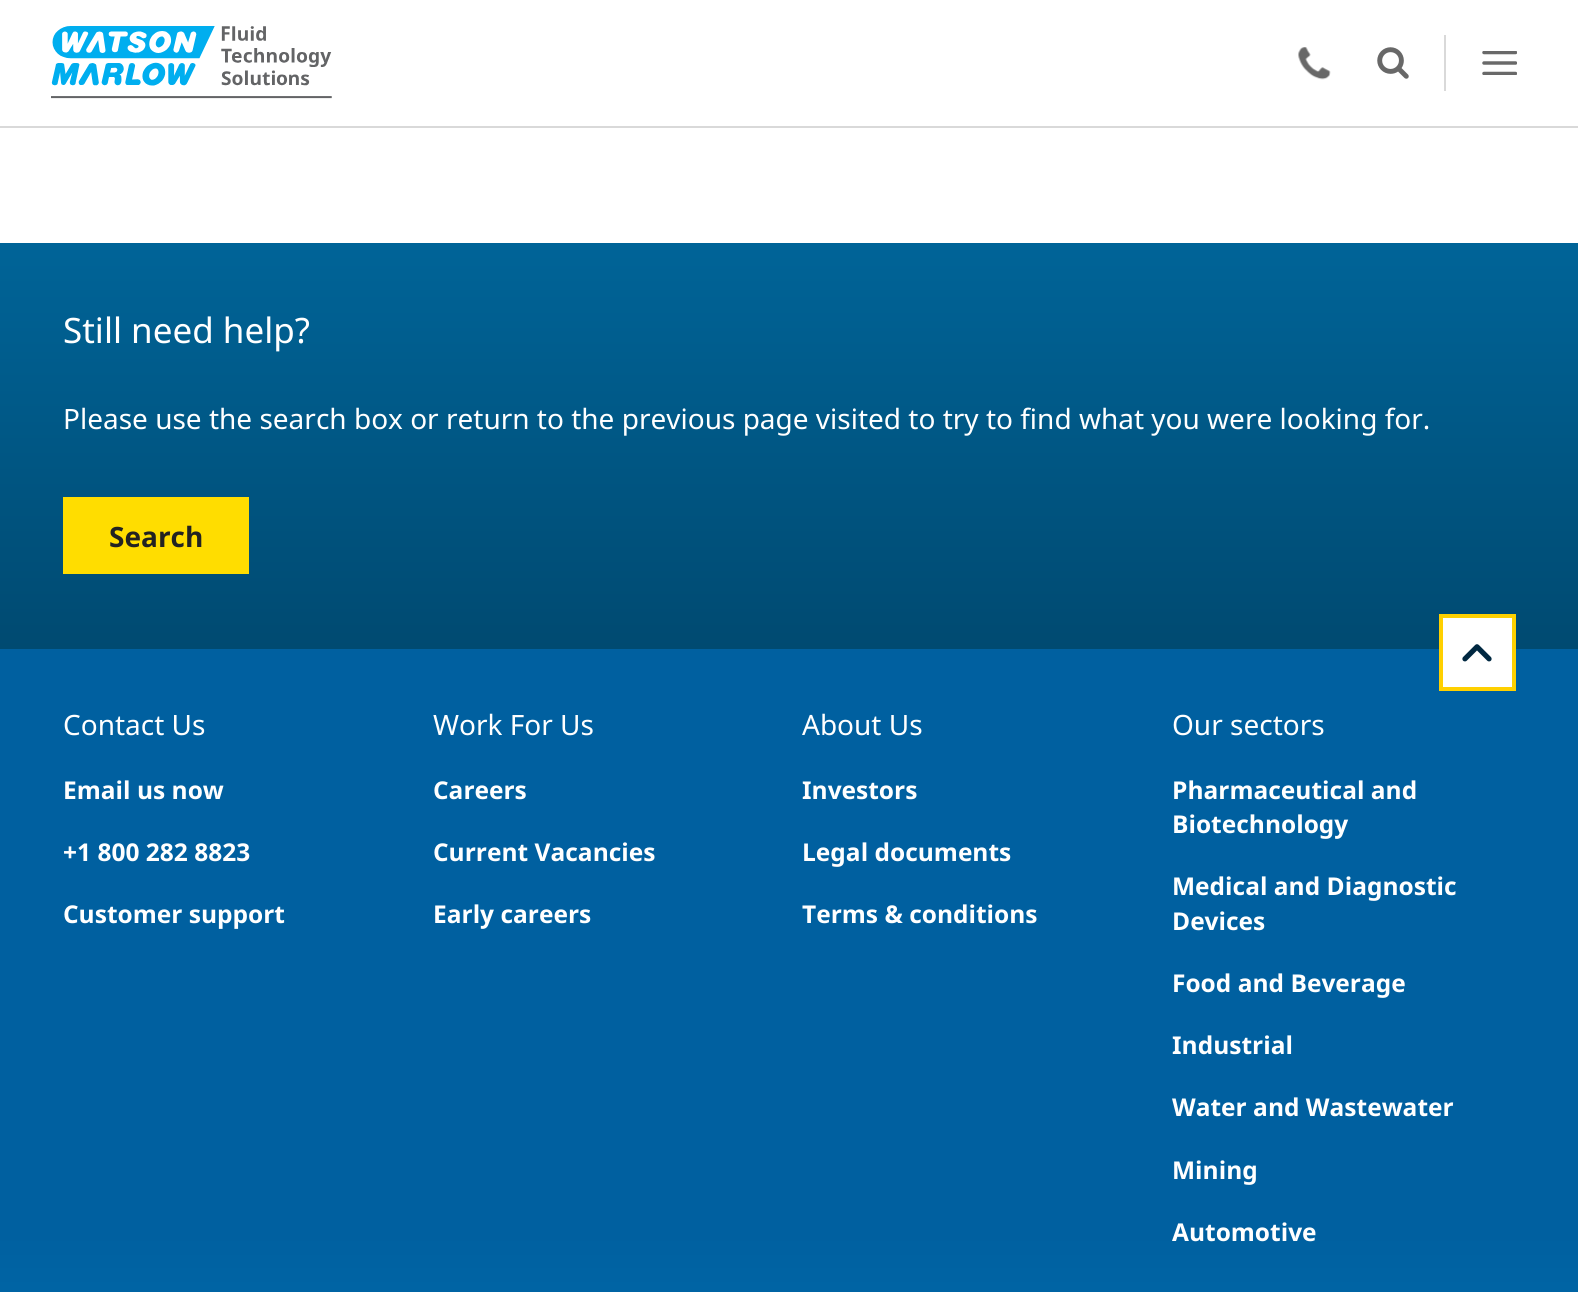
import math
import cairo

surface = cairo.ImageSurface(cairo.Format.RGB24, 1578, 1292)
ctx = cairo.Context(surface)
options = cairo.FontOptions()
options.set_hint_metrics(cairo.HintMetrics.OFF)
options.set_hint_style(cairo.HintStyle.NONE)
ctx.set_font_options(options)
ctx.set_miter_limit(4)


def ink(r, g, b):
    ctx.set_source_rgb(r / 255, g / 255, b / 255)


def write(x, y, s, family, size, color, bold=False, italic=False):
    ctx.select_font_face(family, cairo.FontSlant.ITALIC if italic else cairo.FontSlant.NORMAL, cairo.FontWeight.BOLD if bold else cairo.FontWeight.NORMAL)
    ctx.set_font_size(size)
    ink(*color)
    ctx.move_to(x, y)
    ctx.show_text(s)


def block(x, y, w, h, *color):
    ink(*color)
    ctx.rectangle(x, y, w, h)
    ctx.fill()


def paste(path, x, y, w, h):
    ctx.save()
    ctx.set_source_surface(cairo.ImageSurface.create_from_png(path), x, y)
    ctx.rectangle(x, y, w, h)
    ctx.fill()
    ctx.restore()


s1 = dict(family="Noto Sans", size=35, color=(255, 255, 255))
s2 = dict(family="Noto Sans", size=28, color=(255, 255, 255))
s3 = dict(family="Noto Sans", size=28, color=(34, 34, 34), bold=True)
s4 = dict(family="Noto Sans", size=24.5, color=(255, 255, 255), bold=True)

ink(255, 255, 255)
ctx.paint()
block(0, 126, 1578, 2, 217, 217, 217)
paste("pic1.png", 51, 26, 281, 73)
paste("pic2.png", 1298, 47, 33, 33)
paste("pic3.png", 1377, 47, 32, 32)
block(1444, 35, 2, 56, 217, 217, 217)
paste("pic4.png", 1482, 51, 35, 24)
gradient = cairo.LinearGradient(789, 243, 789, 649)
gradient.add_color_stop_rgba(0, 0, 0.392, 0.596, 1)
gradient.add_color_stop_rgba(1, 0, 0.29, 0.443, 1)
ctx.set_source(gradient)
ctx.rectangle(0, 243, 1578, 406)
ctx.fill()
write(63, 343, "Still need help?", **s1)
write(63, 429, "Please use the search box or return to the previous page visited to try to find what you were looking for.", **s2)
block(63, 497, 186, 77, 255, 221, 0)
write(109, 547, "Search", **s3)
gradient = cairo.LinearGradient(789, 649, 789, 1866)
gradient.add_color_stop_rgba(0.48, 0, 0.376, 0.627, 1)
gradient.add_color_stop_rgba(1, 0, 0.561, 0.812, 1)
ctx.set_source(gradient)
ctx.rectangle(0, 649, 1578, 643)
ctx.fill()
ink(255, 255, 255)
ctx.rectangle(1441, 616, 73, 73)
ctx.fill_preserve()
ink(255, 208, 0)
ctx.set_line_width(4)
ctx.stroke()
paste("pic5.png", 1462, 644, 30, 18)
write(63, 735, "Contact Us", **s2)
write(63, 799, "Email us now", **s4)
write(63, 861, "+1 800 282 8823", **s4)
write(63, 923, "Customer support", **s4)
write(433, 735, "Work For Us", **s2)
write(433, 799, "Careers", **s4)
write(433, 861, "Current Vacancies", **s4)
write(433, 923, "Early careers", **s4)
write(802, 735, "About Us", **s2)
write(802, 799, "Investors", **s4)
write(802, 861, "Legal documents", **s4)
write(802, 923, "Terms & conditions", **s4)
write(1172, 735, "Our sectors", **s2)
write(1172, 799, "Pharmaceutical and", **s4)
write(1172, 833, "Biotechnology", **s4)
write(1172, 895, "Medical and Diagnostic", **s4)
write(1172, 930, "Devices", **s4)
write(1172, 992, "Food and Beverage", **s4)
write(1172, 1054, "Industrial", **s4)
write(1172, 1116, "Water and Wastewater", **s4)
write(1172, 1179, "Mining", **s4)
write(1172, 1241, "Automotive", **s4)
surface.write_to_png("screenshot.png")
